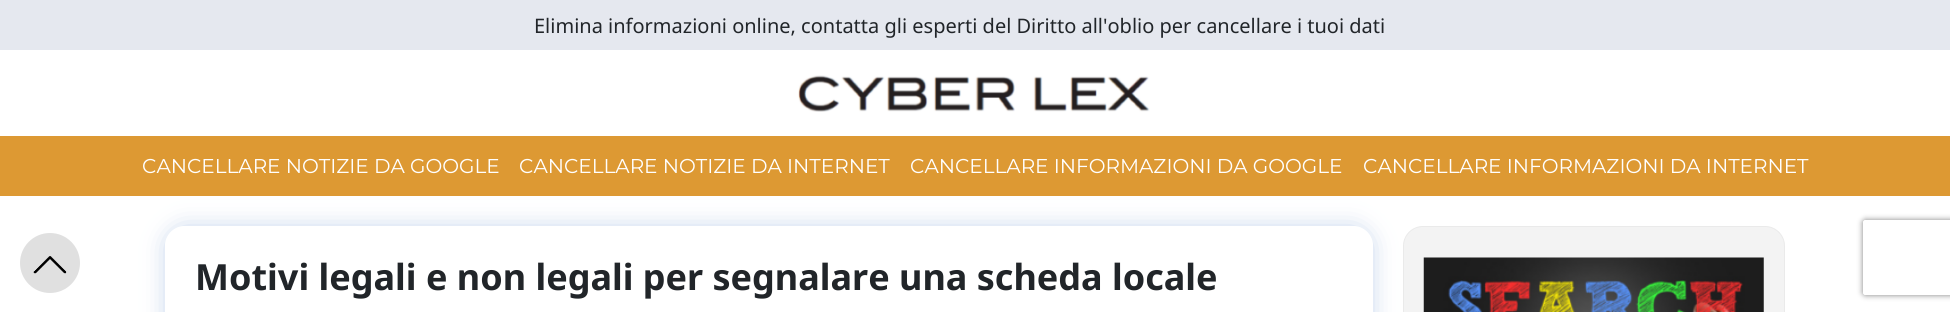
import math
import cairo

surface = cairo.ImageSurface(cairo.Format.RGB24, 1950, 312)
ctx = cairo.Context(surface)
options = cairo.FontOptions()
options.set_hint_metrics(cairo.HintMetrics.OFF)
options.set_hint_style(cairo.HintStyle.NONE)
ctx.set_font_options(options)
ctx.set_miter_limit(4)


def ink(r, g, b):
    ctx.set_source_rgb(r / 255, g / 255, b / 255)


def write(x, y, s, family, size, color, bold=False, italic=False):
    ctx.select_font_face(family, cairo.FontSlant.ITALIC if italic else cairo.FontSlant.NORMAL, cairo.FontWeight.BOLD if bold else cairo.FontWeight.NORMAL)
    ctx.set_font_size(size)
    ink(*color)
    ctx.move_to(x, y)
    ctx.show_text(s)


def block(x, y, w, h, *color):
    ink(*color)
    ctx.rectangle(x, y, w, h)
    ctx.fill()


def round_path(x, y, w, h, r):
    ctx.new_sub_path()
    for i, (u, v) in enumerate([(x + w - r, y + h - r), (x + r, y + h - r), (x + r, y + r), (x + w - r, y + r)]):
        ctx.arc(u, v, r, i * math.pi / 2, (i + 1) * math.pi / 2)
    ctx.close_path()


def blur_box(x, y, w, h, r, blur, alpha):
    ctx.push_group_with_content(cairo.Content.ALPHA)
    ctx.set_operator(cairo.Operator.SOURCE)
    for i in range(15, -16, -2):
        e = blur * i / 6
        if min(w, h) + 2 * e > 0:
            ctx.set_source_rgba(0, 0, 0, alpha * math.erfc((i - 1) / 8.5) / 2)
            round_path(x - e, y - e, w + 2 * e, h + 2 * e, max(0, min(r + e + blur * .6, min(w, h) / 2 + e)))
            ctx.fill()
    ctx.mask(ctx.pop_group())


def paste(path, x, y, w, h):
    ctx.save()
    ctx.set_source_surface(cairo.ImageSurface.create_from_png(path), x, y)
    ctx.rectangle(x, y, w, h)
    ctx.fill()
    ctx.restore()


s1 = dict(family="Noto Sans", size=20, color=(33, 37, 41))
s2 = dict(family="Montserrat", size=20, color=(255, 255, 255))
s3 = dict(family="Noto Sans", size=36, color=(33, 37, 41), bold=True)

ink(255, 255, 255)
ctx.paint()
block(0, 0, 1950, 50, 229, 232, 239)
write(534, 33, "Elimina informazioni online, contatta gli esperti del Diritto all'oblio per cancellare i tuoi dati", **s1)
paste("pic1.png", 798, 75, 352, 37)
ctx.save()
ctx.set_fill_rule(cairo.FillRule.EVEN_ODD)
ctx.new_path()
ctx.move_to(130, 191)
ctx.line_to(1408, 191)
ctx.line_to(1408, 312)
ctx.line_to(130, 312)
ctx.close_path()
ctx.move_to(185, 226)
ctx.line_to(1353, 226)
ctx.curve_to(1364, 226, 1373, 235, 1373, 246)
ctx.line_to(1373, 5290)
ctx.curve_to(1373, 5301, 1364, 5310, 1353, 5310)
ctx.line_to(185, 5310)
ctx.curve_to(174, 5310, 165, 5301, 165, 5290)
ctx.line_to(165, 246)
ctx.curve_to(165, 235, 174, 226, 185, 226)
ctx.close_path()
ctx.clip()
ink(185, 204, 232)
blur_box(169, 230, 1200, 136, 16, 12.5, 1)
ctx.restore()
block(0, 136, 1950, 60, 221, 153, 51)
write(142, 173, "CANCELLARE NOTIZIE DA GOOGLE", **s2)
write(519, 173, "CANCELLARE NOTIZIE DA INTERNET", **s2)
write(910, 173, "CANCELLARE INFORMAZIONI DA GOOGLE", **s2)
write(1363, 173, "CANCELLARE INFORMAZIONI DA INTERNET", **s2)
ink(224, 224, 224)
ctx.new_path()
ctx.arc(50, 263, 30, 0, 2 * math.pi)
ctx.fill()
paste("pic2.png", 33, 256, 34, 18)
write(195, 290, "Motivi legali e non legali per segnalare una scheda locale", **s3)
ink(243, 243, 243)
round_path(1403.5, 226.5, 381, 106, 19.5)
ctx.fill_preserve()
ink(234, 234, 234)
ctx.set_line_width(1)
ctx.stroke()
paste("pic3.png", 1423, 257, 341, 55)
ctx.save()
ctx.set_fill_rule(cairo.FillRule.EVEN_ODD)
ctx.new_path()
ctx.move_to(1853, 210)
ctx.line_to(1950, 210)
ctx.line_to(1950, 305)
ctx.line_to(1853, 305)
ctx.close_path()
ctx.move_to(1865.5, 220)
ctx.line_to(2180.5, 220)
ctx.curve_to(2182, 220, 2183, 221, 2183, 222.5)
ctx.line_to(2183, 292.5)
ctx.curve_to(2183, 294, 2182, 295, 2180.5, 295)
ctx.line_to(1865.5, 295)
ctx.curve_to(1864, 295, 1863, 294, 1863, 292.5)
ctx.line_to(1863, 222.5)
ctx.curve_to(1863, 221, 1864, 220, 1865.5, 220)
ctx.close_path()
ctx.clip()
ink(128, 128, 128)
blur_box(1863, 220, 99, 75, 2.5, 3, 1)
ctx.restore()
surface.write_to_png("screenshot.png")
